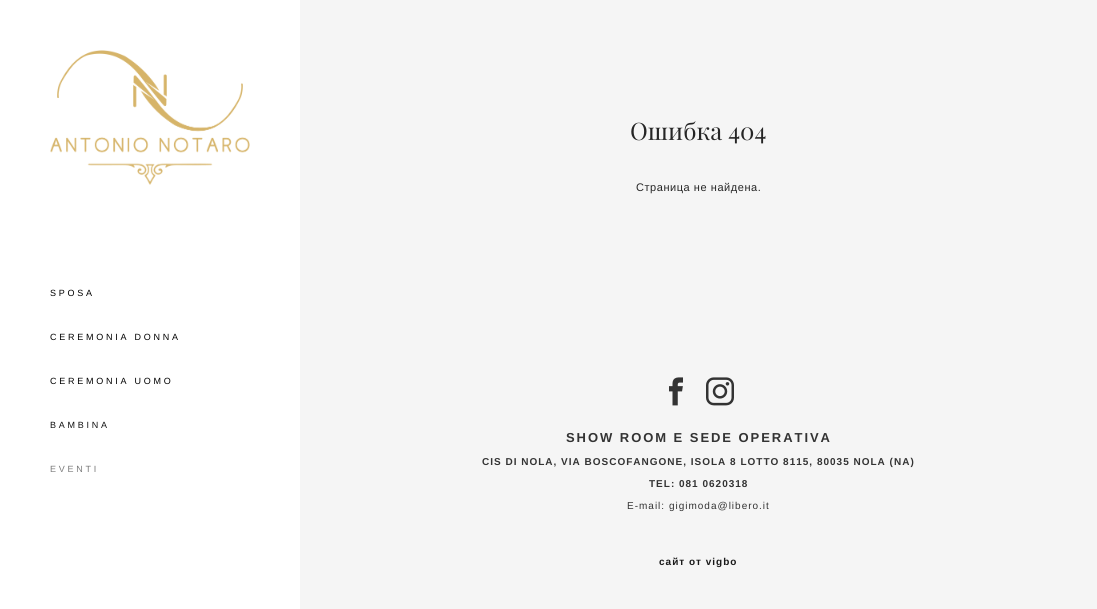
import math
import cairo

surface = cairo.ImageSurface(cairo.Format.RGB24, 1097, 609)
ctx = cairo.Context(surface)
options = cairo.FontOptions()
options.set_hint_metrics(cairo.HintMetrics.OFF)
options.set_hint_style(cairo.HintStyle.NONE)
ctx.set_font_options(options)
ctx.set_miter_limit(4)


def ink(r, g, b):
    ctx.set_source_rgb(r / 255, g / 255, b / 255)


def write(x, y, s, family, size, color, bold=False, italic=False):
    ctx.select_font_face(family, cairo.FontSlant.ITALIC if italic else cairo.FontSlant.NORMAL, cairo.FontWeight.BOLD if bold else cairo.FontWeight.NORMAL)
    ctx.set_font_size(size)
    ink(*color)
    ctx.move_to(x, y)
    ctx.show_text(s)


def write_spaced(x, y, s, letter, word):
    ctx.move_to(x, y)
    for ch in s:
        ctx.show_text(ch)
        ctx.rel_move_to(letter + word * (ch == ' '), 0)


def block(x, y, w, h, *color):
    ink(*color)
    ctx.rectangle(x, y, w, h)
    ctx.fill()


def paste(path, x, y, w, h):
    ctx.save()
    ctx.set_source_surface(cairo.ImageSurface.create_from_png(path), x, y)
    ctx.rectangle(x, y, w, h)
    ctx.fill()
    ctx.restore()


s1 = dict(family="Playfair Display", size=24, color=(37, 37, 37))

ink(245, 245, 245)
ctx.paint()
write(630, 140, "Ошибка 404", **s1)
ctx.select_font_face("Liberation Sans")
ctx.set_font_size(11)
write_spaced(636, 191, "Страница не найдена.", 0.55, 0)
block(0, 0, 300, 609, 255, 255, 255)
paste("pic1.png", 50, 50, 200, 135)
ctx.set_font_size(9)
ink(0, 0, 0)
write_spaced(50, 296, "SPOSA", 2.75, 0)
write_spaced(50, 340, "CEREMONIA DONNA", 2.75, 0)
write_spaced(50, 384, "CEREMONIA UOMO", 2.75, 0)
write_spaced(50, 428, "BAMBINA", 2.75, 0)
write_spaced(50, 472, "EVENTI", 2.75, 0)
gradient = cairo.LinearGradient(150, 418, 150, 558)
gradient.add_color_stop_rgba(0, 1, 1, 1, 0)
gradient.add_color_stop_rgba(0.75, 1, 1, 1, 1)
gradient.add_color_stop_rgba(1, 1, 1, 1, 1)
ctx.set_source(gradient)
ctx.rectangle(50, 422, 57, 50)
ctx.fill()
paste("pic2.png", 669, 377, 14, 29)
paste("pic3.png", 706, 377, 28, 29)
ctx.select_font_face("Liberation Sans", cairo.FontSlant.NORMAL, cairo.FontWeight.BOLD)
ctx.set_font_size(13)
ink(51, 51, 51)
write_spaced(566, 442, "SHOW ROOM E SEDE OPERATIVA", 1.95, 0)
ctx.set_font_size(10)
write_spaced(482, 465, "CIS DI NOLA, VIA BOSCOFANGONE, ISOLA 8 LOTTO 8115, 80035 NOLA (NA)", 1, 0)
write_spaced(649, 487, "TEL: 081 0620318", 1, 0)
ctx.select_font_face("Liberation Sans")
write_spaced(627, 509, "E-mail: gigimoda@libero.it", 1, 0)
ctx.select_font_face("Liberation Sans", cairo.FontSlant.NORMAL, cairo.FontWeight.BOLD)
ink(25, 25, 25)
write_spaced(659, 565, "сайт от vigbo", 1, 0)
surface.write_to_png("screenshot.png")
